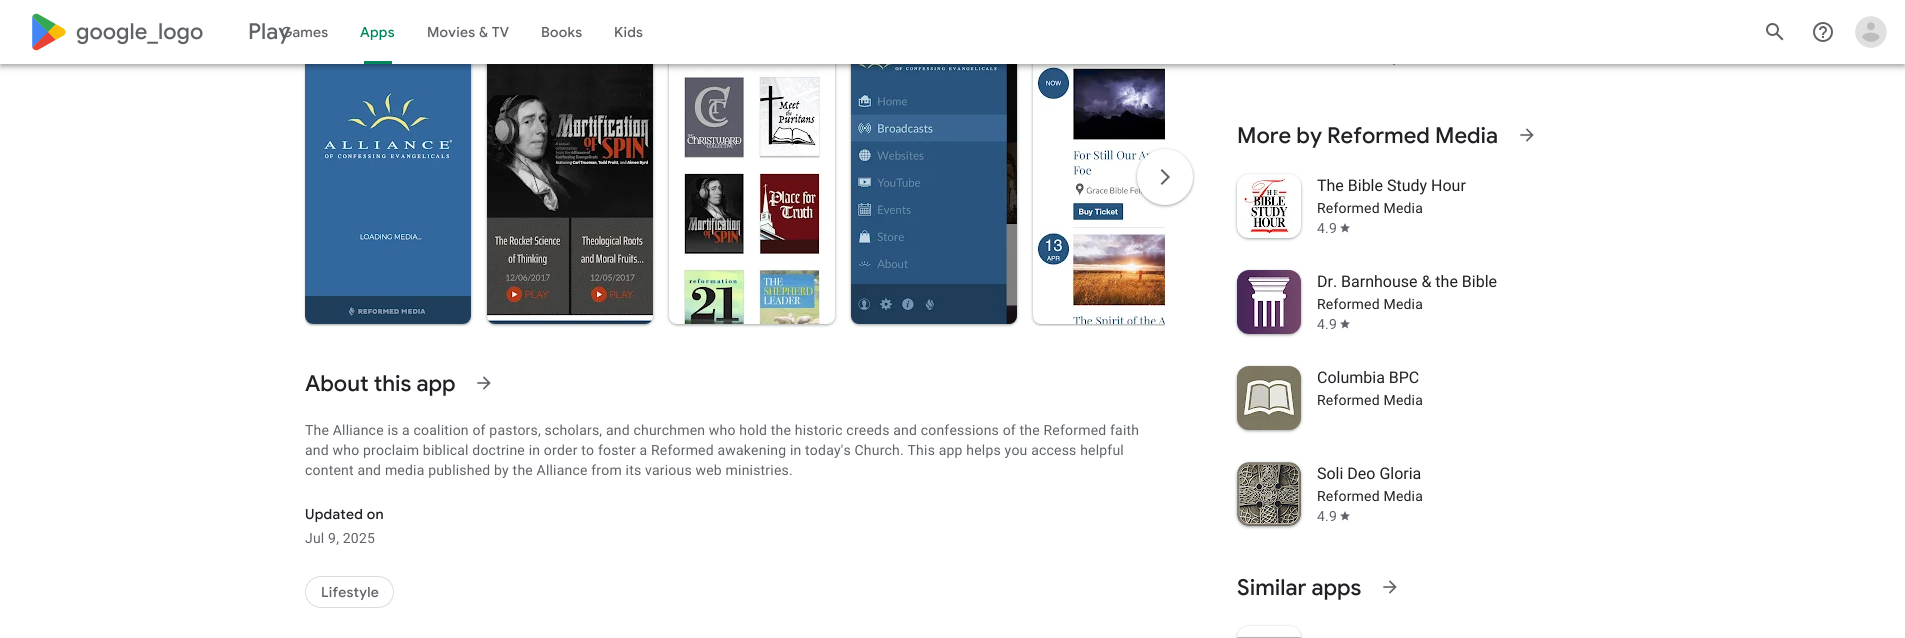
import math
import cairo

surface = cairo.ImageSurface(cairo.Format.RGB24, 1905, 638)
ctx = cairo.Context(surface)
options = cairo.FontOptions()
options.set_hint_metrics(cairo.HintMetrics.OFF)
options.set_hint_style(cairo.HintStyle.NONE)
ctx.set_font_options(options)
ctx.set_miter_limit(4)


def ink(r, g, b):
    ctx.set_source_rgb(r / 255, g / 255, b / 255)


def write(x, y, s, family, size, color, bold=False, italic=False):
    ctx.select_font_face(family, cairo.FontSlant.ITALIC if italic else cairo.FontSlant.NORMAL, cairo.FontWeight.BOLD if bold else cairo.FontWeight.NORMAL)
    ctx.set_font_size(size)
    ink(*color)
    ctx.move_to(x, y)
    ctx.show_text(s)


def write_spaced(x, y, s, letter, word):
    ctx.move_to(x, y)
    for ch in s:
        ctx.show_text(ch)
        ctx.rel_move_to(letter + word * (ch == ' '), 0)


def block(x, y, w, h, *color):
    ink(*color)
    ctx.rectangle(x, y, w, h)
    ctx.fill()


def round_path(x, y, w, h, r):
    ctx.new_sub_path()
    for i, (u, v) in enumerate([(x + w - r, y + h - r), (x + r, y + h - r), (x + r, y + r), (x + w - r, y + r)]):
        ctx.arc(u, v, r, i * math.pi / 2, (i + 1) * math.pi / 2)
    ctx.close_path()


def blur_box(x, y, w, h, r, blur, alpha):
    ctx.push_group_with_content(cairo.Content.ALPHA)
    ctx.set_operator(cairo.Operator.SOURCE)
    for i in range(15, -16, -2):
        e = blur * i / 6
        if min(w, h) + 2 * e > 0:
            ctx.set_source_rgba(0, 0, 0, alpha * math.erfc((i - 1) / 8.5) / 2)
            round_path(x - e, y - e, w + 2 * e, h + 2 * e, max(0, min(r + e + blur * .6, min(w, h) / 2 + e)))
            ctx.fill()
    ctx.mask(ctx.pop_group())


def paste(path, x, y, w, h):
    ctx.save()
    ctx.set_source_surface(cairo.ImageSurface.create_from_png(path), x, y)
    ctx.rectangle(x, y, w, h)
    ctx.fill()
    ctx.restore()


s1 = dict(family="Google Sans Medium", size=22, color=(32, 33, 36))
s2 = dict(family="Roboto", size=16, color=(32, 33, 36))

ink(255, 255, 255)
ctx.paint()
ctx.save()
ctx.rectangle(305, 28, 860, 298)
ctx.clip()
ink(60, 64, 67)
blur_box(304, 28, 168, 298, 9, 1.5, 0.15)
ctx.restore()
ctx.save()
ctx.set_fill_rule(cairo.FillRule.EVEN_ODD)
ctx.new_path()
ctx.move_to(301, 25)
ctx.line_to(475, 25)
ctx.line_to(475, 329)
ctx.line_to(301, 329)
ctx.close_path()
ctx.move_to(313, 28)
ctx.line_to(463, 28)
ctx.curve_to(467.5, 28, 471, 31.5, 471, 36)
ctx.line_to(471, 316)
ctx.curve_to(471, 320.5, 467.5, 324, 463, 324)
ctx.line_to(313, 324)
ctx.curve_to(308.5, 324, 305, 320.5, 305, 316)
ctx.line_to(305, 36)
ctx.curve_to(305, 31.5, 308.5, 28, 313, 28)
ctx.close_path()
ctx.clip()
ink(60, 64, 67)
blur_box(305, 29, 166, 296, 8, 1, 0.3)
ctx.restore()
paste("pic5.png", 305, 64, 166, 260)
ink(60, 64, 67)
blur_box(486, 28, 168, 298, 9, 1.5, 0.15)
blur_box(487, 29, 166, 296, 8, 1, 0.3)
paste("pic6.png", 487, 64, 166, 260)
blur_box(668, 28, 168, 298, 9, 1.5, 0.15)
blur_box(669, 29, 166, 296, 8, 1, 0.3)
paste("pic7.png", 669, 64, 166, 260)
blur_box(850, 28, 168, 298, 9, 1.5, 0.15)
blur_box(851, 29, 166, 296, 8, 1, 0.3)
paste("pic8.png", 851, 64, 166, 260)
ctx.save()
ctx.rectangle(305, 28, 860, 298)
ctx.clip()
blur_box(1032, 28, 168, 298, 9, 1.5, 0.15)
blur_box(1033, 29, 166, 296, 8, 1, 0.3)
ctx.restore()
paste("pic9.png", 1033, 64, 132, 260)
paste("pic12.png", 1393, 64, 2, 1)
ink(0, 0, 0)
blur_box(1, 3, 1903, 62, 0, 2, 0.2)
blur_box(0, 1, 1905, 64, 0, 5, 0.12)
blur_box(0, 4, 1905, 64, 0, 2.5, 0.14)
block(0, 0, 1905, 64, 255, 255, 255)
paste("pic1.png", 32, 13, 34, 38)
ctx.select_font_face("Google Sans Medium")
ctx.set_font_size(22)
ink(95, 99, 104)
write_spaced(76, 39, "google_logo", 0, 55)
write_spaced(248, 39, "Play", 0, 55)
ctx.set_font_size(14)
write_spaced(281, 37, "Games", 0.25, 0)
ink(1, 135, 95)
write_spaced(360, 37, "Apps", 0.25, 0)
block(364, 61, 28, 3, 1, 135, 95)
ink(95, 99, 104)
write_spaced(427, 37, "Movies & TV", 0.25, 0)
write_spaced(541, 37, "Books", 0.25, 0)
write_spaced(614, 37, "Kids", 0.25, 0)
paste("pic2.png", 1766, 23, 18, 18)
paste("pic3.png", 1813, 22, 20, 20)
paste("pic4.png", 1855, 16, 32, 32)
ink(60, 64, 67)
blur_box(1136, 149, 58, 58, 29, 1.5, 0.15)
blur_box(1137, 150, 56, 56, 28, 1, 0.3)
ink(255, 255, 255)
ctx.arc(1165, 177, 28, 0, 2 * math.pi)
ctx.fill()
paste("pic10.png", 1160, 169, 10, 16)
write(305, 391, "About this app", **s1)
paste("pic11.png", 477, 376, 14, 14)
ctx.select_font_face("Roboto")
ctx.set_font_size(14)
ink(95, 99, 104)
write_spaced(305, 435, "The Alliance is a coalition of pastors, scholars, and churchmen who hold the historic creeds and confessions of the Reformed faith", 0.2, 0)
write_spaced(305, 455, "and who proclaim biblical doctrine in order to foster a Reformed awakening in today's Church. This app helps you access helpful", 0.2, 0)
write_spaced(305, 475, "content and media published by the Alliance from its various web ministries.", 0.2, 0)
ctx.select_font_face("Google Sans Medium")
ink(32, 33, 36)
write_spaced(305, 519, "Updated on", 0.25, 0)
ctx.select_font_face("Roboto")
ink(95, 99, 104)
write_spaced(305, 543, "Jul 9, 2025", 0.2, 0)
round_path(305.5, 576.5, 88, 31, 15.5)
ink(218, 220, 224)
ctx.set_line_width(1)
ctx.stroke()
ctx.select_font_face("Google Sans Medium")
ink(95, 99, 104)
write_spaced(321, 597, "Lifestyle", 0.25, 0)
write(1237, 143, "More by Reformed Media", **s1)
paste("pic11.png", 1520, 128, 14, 14)
ink(60, 64, 67)
blur_box(1236, 174, 66, 66, 13, 1.5, 0.15)
blur_box(1237, 175, 64, 64, 12, 1, 0.3)
paste("pic13.png", 1237, 174, 64, 64)
write(1317, 191, "The Bible Study Hour", **s2)
ctx.set_font_size(14)
write_spaced(1317, 213, "Reformed Media", 0.2, 0)
ink(95, 99, 104)
write_spaced(1317, 233, "4.9", 0.2, 0)
paste("pic14.png", 1340, 223, 10, 10)
ink(60, 64, 67)
blur_box(1236, 270, 66, 66, 13, 1.5, 0.15)
blur_box(1237, 271, 64, 64, 12, 1, 0.3)
paste("pic15.png", 1237, 270, 64, 64)
write(1317, 287, "Dr. Barnhouse & the Bible", **s2)
ctx.set_font_size(14)
write_spaced(1317, 309, "Reformed Media", 0.2, 0)
ink(95, 99, 104)
write_spaced(1317, 329, "4.9", 0.2, 0)
paste("pic14.png", 1340, 319, 10, 10)
ink(60, 64, 67)
blur_box(1236, 366, 66, 66, 13, 1.5, 0.15)
blur_box(1237, 367, 64, 64, 12, 1, 0.3)
paste("pic16.png", 1237, 366, 64, 64)
write(1317, 383, "Columbia BPC", **s2)
ctx.set_font_size(14)
write_spaced(1317, 405, "Reformed Media", 0.2, 0)
ink(60, 64, 67)
blur_box(1236, 462, 66, 66, 13, 1.5, 0.15)
blur_box(1237, 463, 64, 64, 12, 1, 0.3)
paste("pic17.png", 1237, 462, 64, 64)
write(1317, 479, "Soli Deo Gloria", **s2)
ctx.set_font_size(14)
write_spaced(1317, 501, "Reformed Media", 0.2, 0)
ink(95, 99, 104)
write_spaced(1317, 521, "4.9", 0.2, 0)
paste("pic14.png", 1340, 511, 10, 10)
write(1237, 595, "Similar apps", **s1)
paste("pic11.png", 1383, 580, 14, 14)
ink(60, 64, 67)
blur_box(1236, 626, 66, 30, 13, 1.5, 0.15)
blur_box(1237, 627, 64, 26, 12, 1, 0.3)
paste("pic18.png", 1237, 626, 64, 11)
surface.write_to_png("screenshot.png")
